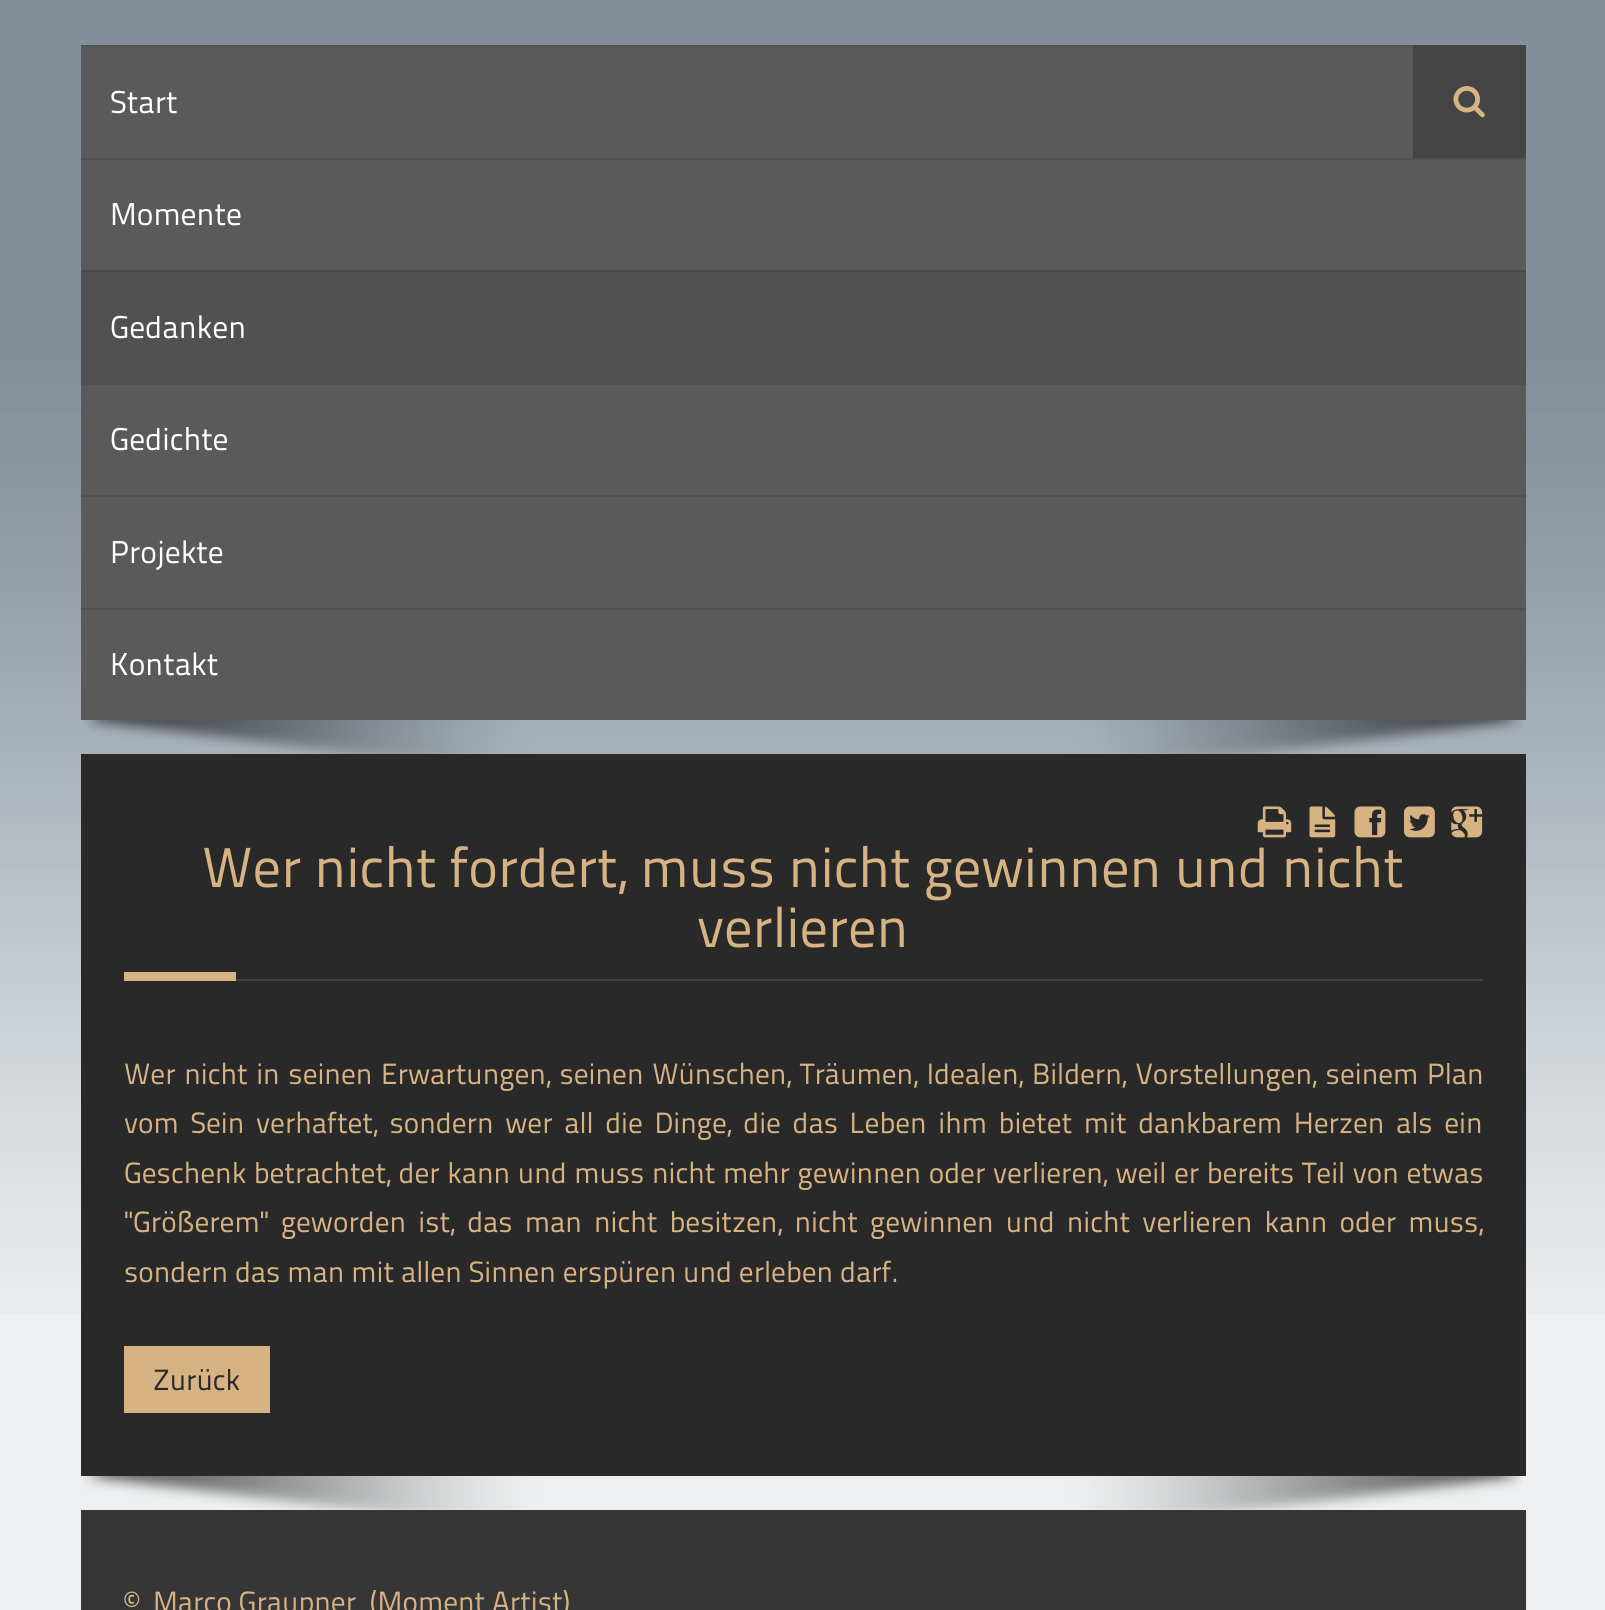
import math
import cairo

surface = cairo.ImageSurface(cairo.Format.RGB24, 1605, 1610)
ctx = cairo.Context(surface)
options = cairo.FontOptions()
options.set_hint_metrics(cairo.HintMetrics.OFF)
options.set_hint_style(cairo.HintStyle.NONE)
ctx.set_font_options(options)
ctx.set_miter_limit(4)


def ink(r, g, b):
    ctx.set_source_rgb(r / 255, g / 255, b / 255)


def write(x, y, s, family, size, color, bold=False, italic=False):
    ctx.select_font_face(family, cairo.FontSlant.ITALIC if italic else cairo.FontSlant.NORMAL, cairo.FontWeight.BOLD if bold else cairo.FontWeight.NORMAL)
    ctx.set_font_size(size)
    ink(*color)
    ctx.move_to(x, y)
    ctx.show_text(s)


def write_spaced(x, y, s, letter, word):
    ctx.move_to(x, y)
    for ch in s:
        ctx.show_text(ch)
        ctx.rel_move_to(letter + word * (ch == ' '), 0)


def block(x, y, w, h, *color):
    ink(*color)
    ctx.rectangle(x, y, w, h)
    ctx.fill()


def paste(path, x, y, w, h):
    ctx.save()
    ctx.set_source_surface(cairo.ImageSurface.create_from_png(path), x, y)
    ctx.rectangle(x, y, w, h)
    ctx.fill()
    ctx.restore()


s1 = dict(family="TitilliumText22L", size=31.5, color=(255, 255, 255))
s2 = dict(family="TitilliumText22L", size=56.25, color=(215, 179, 131))
s3 = dict(family="TitilliumText22L", size=29.25, color=(215, 179, 131))
s4 = dict(family="TitilliumText22L", size=29.25, color=(41, 41, 41))

ink(237, 239, 240)
ctx.paint()
paste("pic1.png", 0, 0, 1605, 1314)
block(81, 47, 1445, 673, 90, 90, 90)
block(81, 45, 1332, 2, 81, 81, 81)
write(110, 113, "Start", **s1)
block(81, 158, 1445, 2, 81, 81, 81)
write(110, 225, "Momente", **s1)
block(81, 272, 1445, 113, 81, 81, 81)
block(81, 270, 1445, 2, 73, 73, 73)
write(110, 338, "Gedanken", **s1)
write(110, 450, "Gedichte", **s1)
block(81, 495, 1445, 2, 81, 81, 81)
write(110, 563, "Projekte", **s1)
block(81, 608, 1445, 2, 81, 81, 81)
write(110, 675, "Kontakt", **s1)
block(1413, 45, 113, 113, 68, 68, 68)
paste("pic2.png", 1453, 86, 32, 32)
paste("pic3.png", 83, 720, 1440, 34)
block(81, 754, 1445, 722, 41, 41, 41)
paste("pic4.png", 1257, 806, 35, 32)
paste("pic5.png", 1309, 806, 27, 32)
paste("pic6.png", 1354, 806, 32, 32)
paste("pic7.png", 1404, 806, 31, 32)
paste("pic8.png", 1451, 806, 32, 32)
block(236, 979, 1247, 2, 64, 64, 64)
write(202, 887, "Wer nicht fordert, muss nicht gewinnen und nicht", **s2)
write(697, 947, "verlieren", **s2)
block(124, 972, 112, 9, 215, 179, 131)
ctx.set_font_size(29.25)
write_spaced(124, 1084, "Wer nicht in seinen Erwartungen, seinen Wünschen, Träumen, Idealen, Bildern, Vorstellungen, seinem Plan", 0, 1.75)
write_spaced(124, 1133, "vom Sein verhaftet, sondern wer all die Dinge, die das Leben ihm bietet mit dankbarem Herzen als ein", 0, 4.75)
write_spaced(124, 1183, "Geschenk betrachtet, der kann und muss nicht mehr gewinnen oder verlieren, weil er bereits Teil von etwas", 0, 0.7)
write_spaced(124, 1232, "\"Größerem\" geworden ist, das man nicht besitzen, nicht gewinnen und nicht verlieren kann oder muss,", 0, 5.25)
write(124, 1282, "sondern das man mit allen Sinnen erspüren und erleben darf.", **s3)
block(124, 1346, 146, 67, 215, 179, 131)
write(153, 1390, "Zurück", **s4)
block(81, 1510, 1445, 100, 54, 54, 54)
paste("pic9.png", 83, 1476, 1440, 34)
write(124, 1612, "©", **s3)
write(153, 1612, "Marco Graupner", **s3)
write(370, 1612, "(Moment Artist)", **s3)
surface.write_to_png("screenshot.png")
